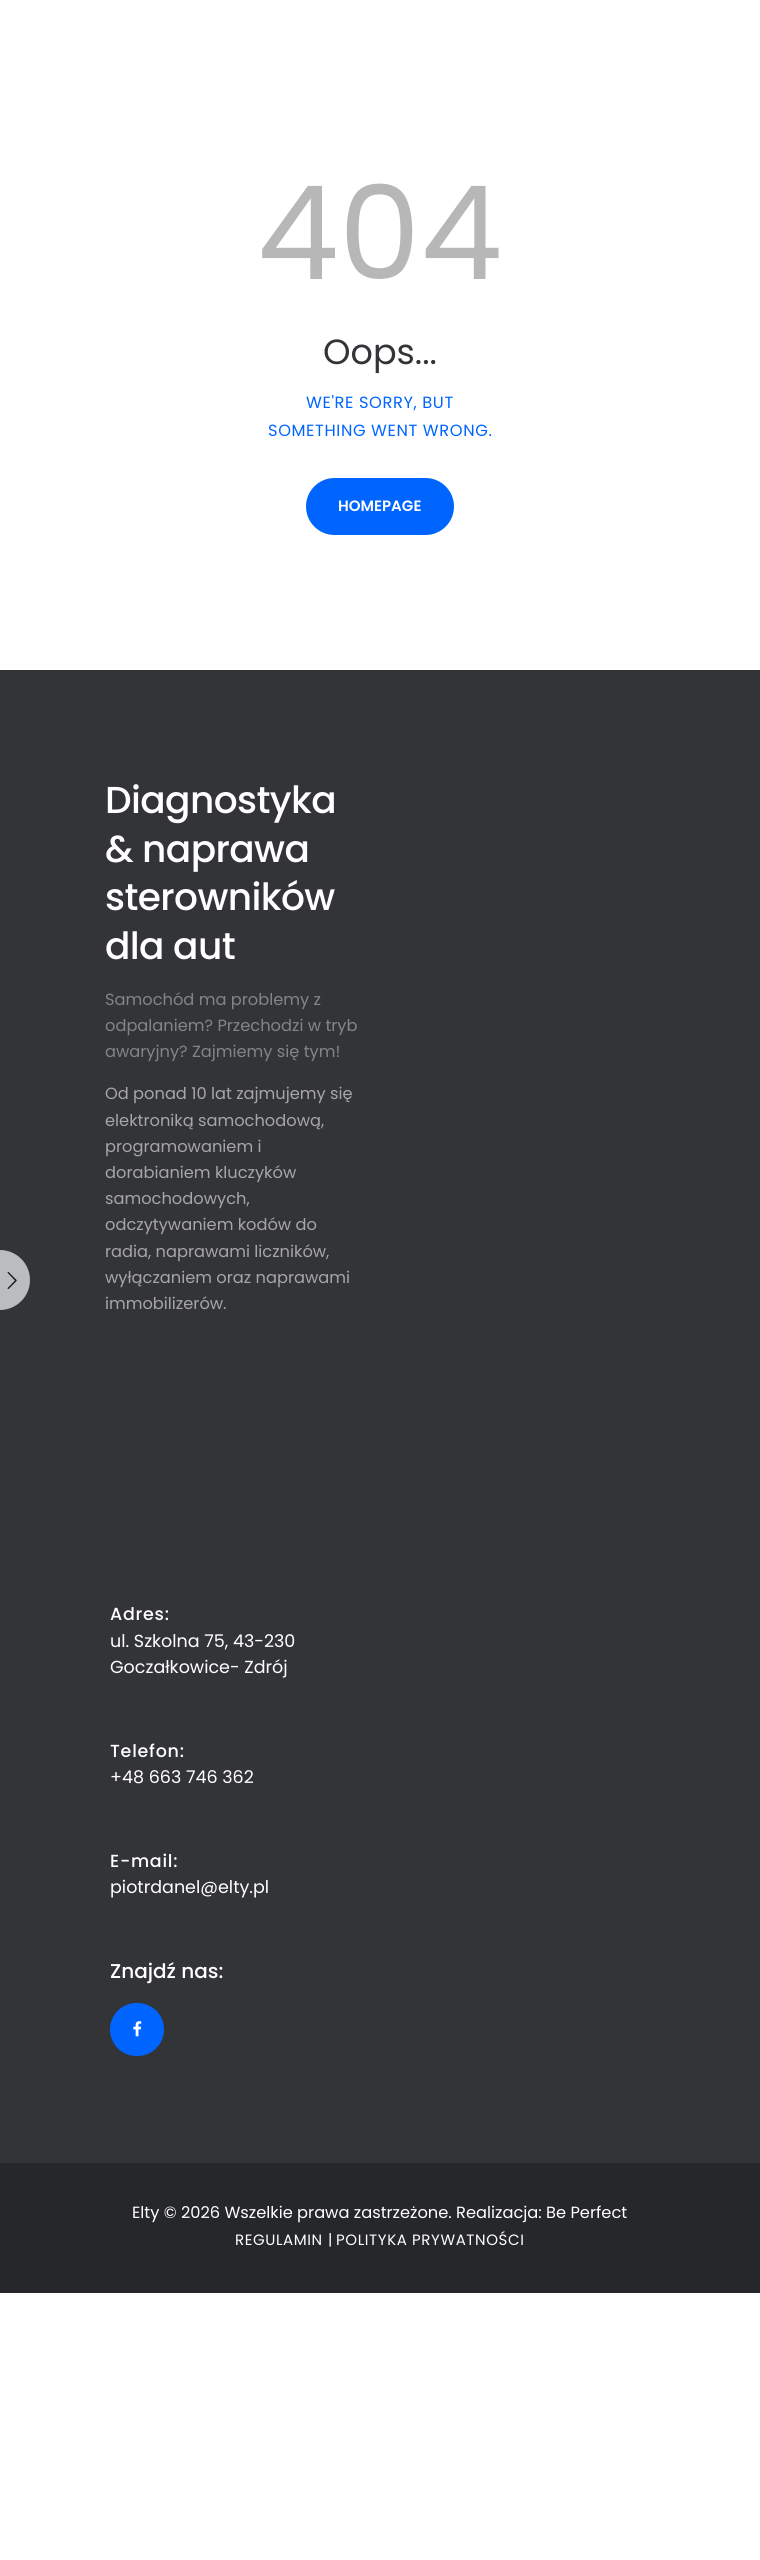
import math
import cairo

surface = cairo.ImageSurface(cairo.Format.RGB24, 760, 2560)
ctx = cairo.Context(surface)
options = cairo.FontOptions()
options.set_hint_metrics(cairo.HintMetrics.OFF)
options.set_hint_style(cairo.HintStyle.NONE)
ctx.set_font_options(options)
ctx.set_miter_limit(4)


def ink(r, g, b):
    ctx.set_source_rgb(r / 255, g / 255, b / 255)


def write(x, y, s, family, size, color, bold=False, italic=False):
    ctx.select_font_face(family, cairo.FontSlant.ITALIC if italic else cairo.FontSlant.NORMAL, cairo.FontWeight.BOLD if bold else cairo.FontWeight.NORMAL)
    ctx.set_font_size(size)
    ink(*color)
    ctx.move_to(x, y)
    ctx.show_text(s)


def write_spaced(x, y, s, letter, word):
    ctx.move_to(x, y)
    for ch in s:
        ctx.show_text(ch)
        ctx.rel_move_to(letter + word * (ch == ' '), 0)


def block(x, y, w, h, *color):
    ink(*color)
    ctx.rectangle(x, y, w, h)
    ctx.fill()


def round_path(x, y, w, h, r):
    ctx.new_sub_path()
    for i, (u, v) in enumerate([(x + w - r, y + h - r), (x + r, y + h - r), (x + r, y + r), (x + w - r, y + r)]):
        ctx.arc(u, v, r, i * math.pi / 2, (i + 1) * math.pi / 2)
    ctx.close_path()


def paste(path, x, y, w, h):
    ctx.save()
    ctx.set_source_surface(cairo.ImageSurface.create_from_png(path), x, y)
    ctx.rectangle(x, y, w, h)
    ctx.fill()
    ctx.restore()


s1 = dict(family="Poppins", size=130, color=(183, 183, 183))
s2 = dict(family="Poppins", size=35, color=(51, 52, 56))
s3 = dict(family="Poppins SemiBold", size=15, color=(255, 255, 255))
s4 = dict(family="Poppins", size=16.25, color=(131, 132, 135))
s5 = dict(family="Poppins", size=16.25, color=(166, 166, 166))
s6 = dict(family="Poppins", size=17.5, color=(255, 255, 255))
s7 = dict(family="Poppins Medium", size=20, color=(255, 255, 255))
s8 = dict(family="Poppins", size=16.25, color=(255, 255, 255))
s9 = dict(family="Poppins", size=15, color=(255, 255, 255))

ink(255, 255, 255)
ctx.paint()
write(257, 279, "404", **s1)
write(323, 364, "Oops...", **s2)
ctx.set_font_size(16.25)
ink(0, 101, 255)
write_spaced(306, 408, "WE'RE SORRY, BUT", 0.6, 0)
write_spaced(268, 436, "SOMETHING WENT WRONG.", 0.6, 0)
round_path(307.5, 479.5, 145, 54, 27)
ctx.fill_preserve()
ctx.set_line_width(3)
ctx.stroke()
write(338, 511, "HOMEPAGE", **s3)
block(0, 670, 760, 1493, 51, 52, 56)
ink(187, 188, 190)
ctx.new_path()
ctx.move_to(-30, 1250)
ctx.line_to(0, 1250)
ctx.curve_to(16.5, 1250, 30, 1263.5, 30, 1280)
ctx.curve_to(30, 1296.5, 16.5, 1310, 0, 1310)
ctx.line_to(-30, 1310)
ctx.close_path()
ctx.fill()
paste("pic1.png", 7, 1271, 10, 18)
ctx.select_font_face("Poppins Medium")
ctx.set_font_size(37.5)
ink(255, 255, 255)
write_spaced(105, 813, "Diagnostyka", -0.6, 0)
write_spaced(105, 862, "& naprawa", -0.6, 0)
write_spaced(105, 910, "sterowników", -0.6, 0)
write_spaced(105, 959, "dla aut", -0.6, 0)
write(105, 1005, "Samochód ma problemy z", **s4)
write(105, 1031, "odpalaniem? Przechodzi w tryb", **s4)
write(105, 1057, "awaryjny? Zajmiemy się tym!", **s4)
write(105, 1099, "Od ponad 10 lat zajmujemy się", **s5)
write(105, 1126, "elektroniką samochodową,", **s5)
write(105, 1152, "programowaniem i", **s5)
write(105, 1178, "dorabianiem kluczyków", **s5)
write(105, 1204, "samochodowych,", **s5)
write(105, 1230, "odczytywaniem kodów do", **s5)
write(105, 1257, "radia, naprawami liczników,", **s5)
write(105, 1283, "wyłączaniem oraz naprawami", **s5)
write(105, 1309, "immobilizerów.", **s5)
ctx.select_font_face("Poppins Medium")
ctx.set_font_size(17.5)
ink(255, 255, 255)
write_spaced(110, 1620, "Adres:", 0.75, 0)
write(110, 1647, "ul. Szkolna 75, 43-230", **s6)
write(110, 1673, "Goczałkowice- Zdrój", **s6)
ctx.select_font_face("Poppins Medium")
write_spaced(110, 1757, "Telefon:", 0.75, 0)
write(110, 1783, "+48 663 746 362", **s6)
ctx.select_font_face("Poppins Medium")
write_spaced(110, 1867, "E-mail:", 0.75, 0)
write(110, 1893, "piotrdanel@elty.pl", **s6)
write(110, 1978, "Znajdź nas:", **s7)
ink(0, 101, 255)
round_path(111.5, 2004.5, 51, 50, 25)
ctx.fill_preserve()
ctx.stroke()
paste("pic2.png", 133, 2021, 9, 16)
block(0, 2163, 760, 130, 38, 39, 42)
write(132, 2218, "Elty © 2026 Wszelkie prawa zastrzeżone. Realizacja: Be Perfect", **s8)
ctx.set_font_size(15)
write_spaced(235, 2245, "REGULAMIN", 0.6, 0)
write(328, 2245, "|", **s9)
write_spaced(336, 2245, "POLITYKA PRYWATNOŚCI", 0.6, 0)
surface.write_to_png("screenshot.png")
